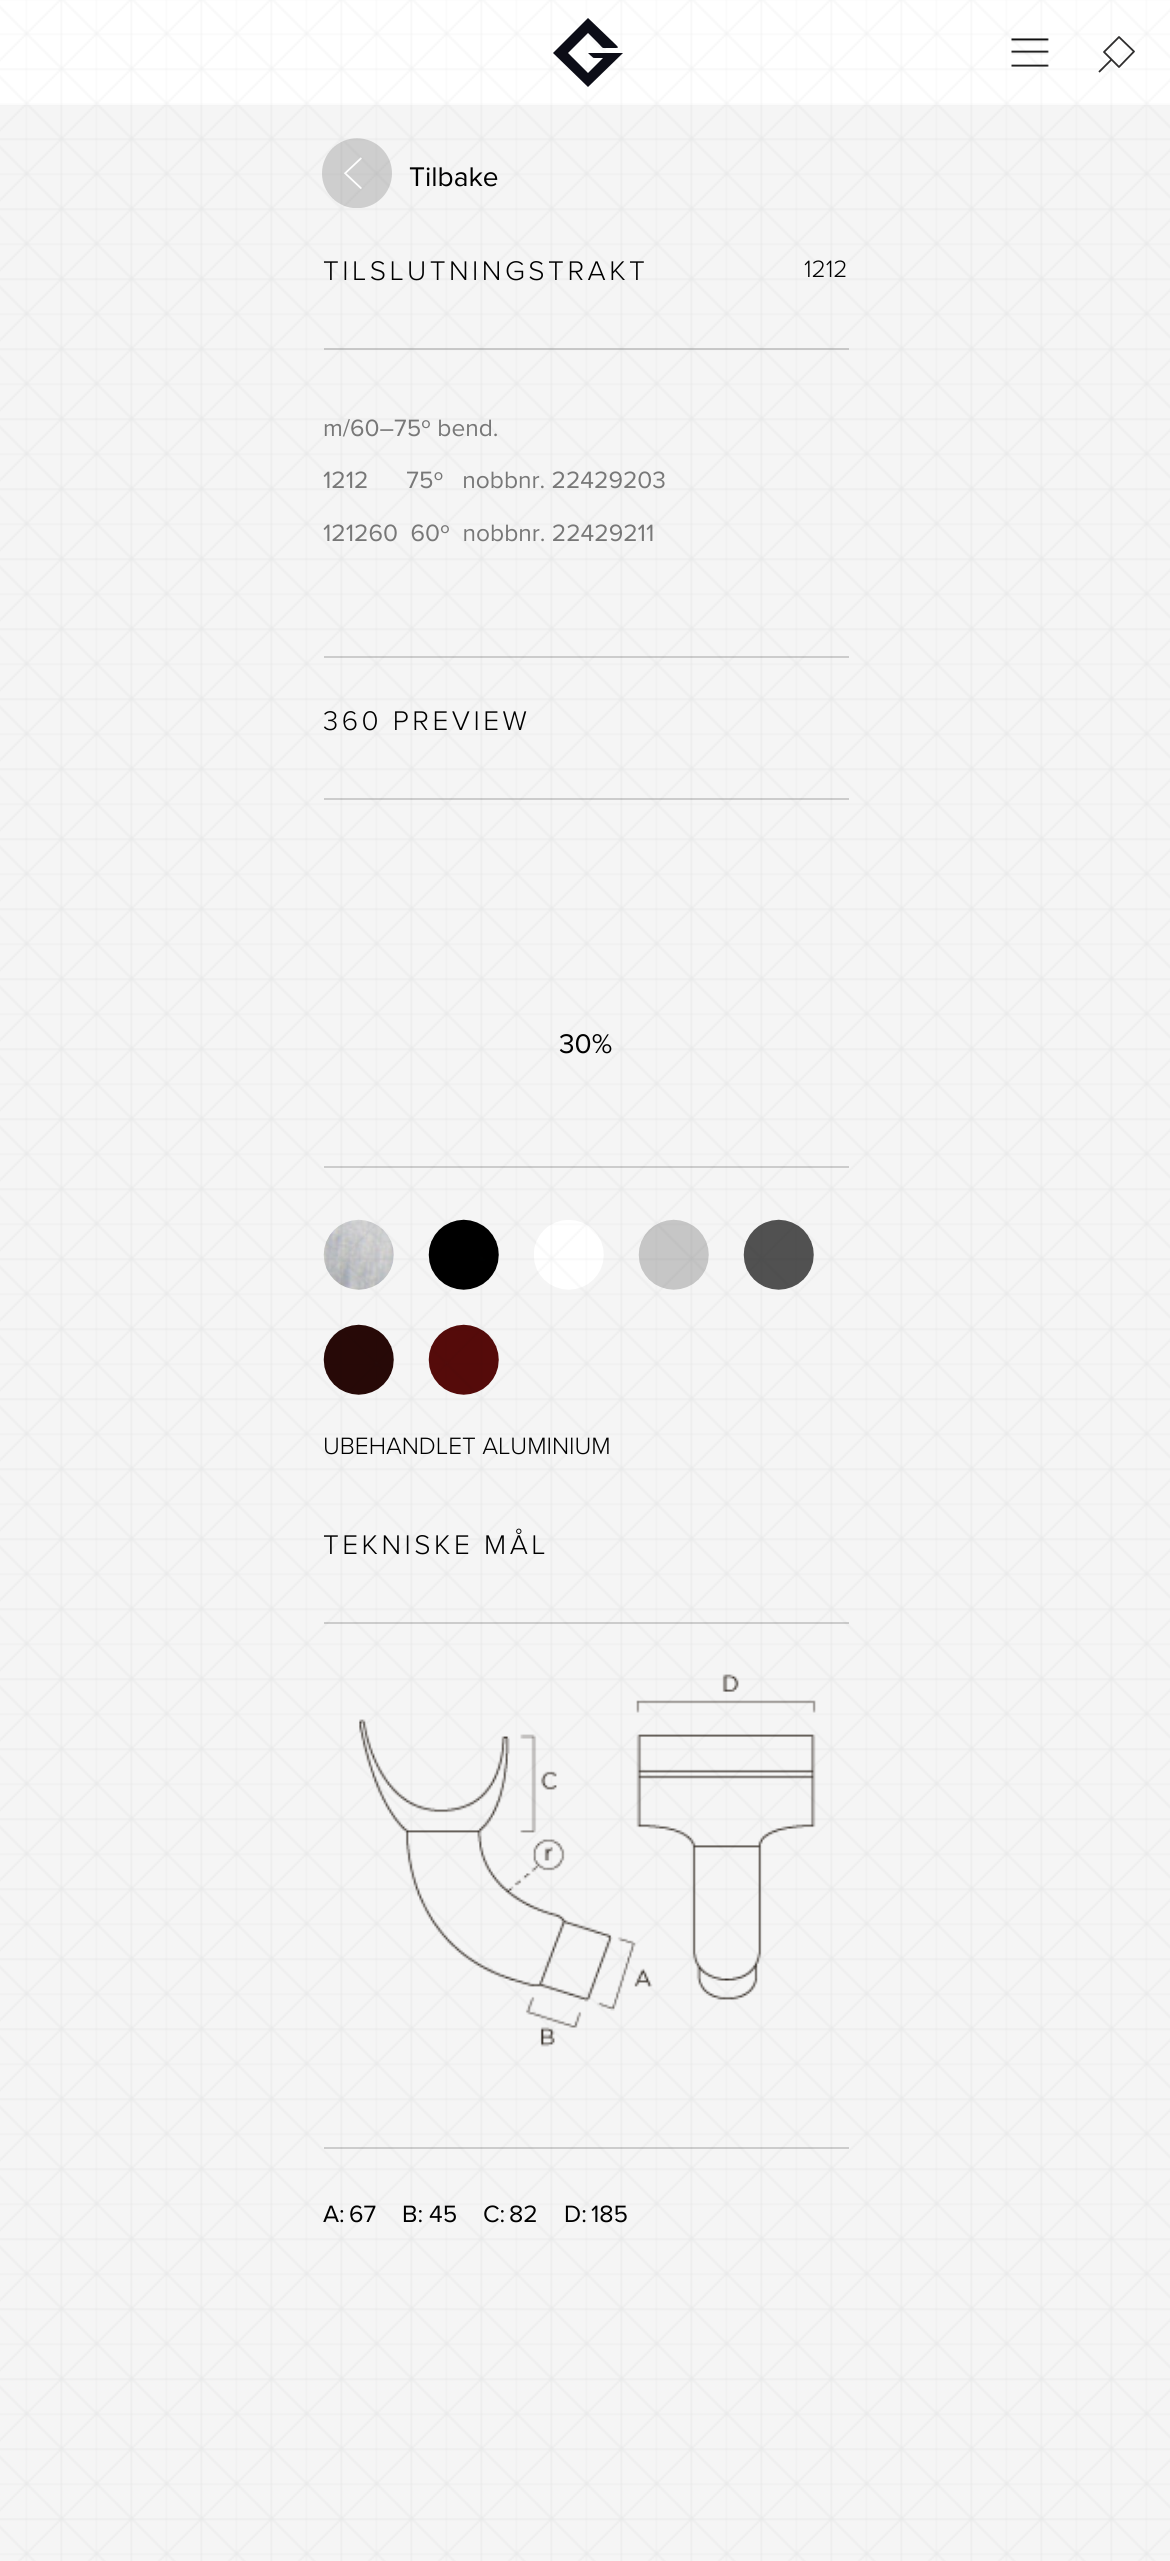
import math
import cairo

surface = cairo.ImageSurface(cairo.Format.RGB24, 1170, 2561)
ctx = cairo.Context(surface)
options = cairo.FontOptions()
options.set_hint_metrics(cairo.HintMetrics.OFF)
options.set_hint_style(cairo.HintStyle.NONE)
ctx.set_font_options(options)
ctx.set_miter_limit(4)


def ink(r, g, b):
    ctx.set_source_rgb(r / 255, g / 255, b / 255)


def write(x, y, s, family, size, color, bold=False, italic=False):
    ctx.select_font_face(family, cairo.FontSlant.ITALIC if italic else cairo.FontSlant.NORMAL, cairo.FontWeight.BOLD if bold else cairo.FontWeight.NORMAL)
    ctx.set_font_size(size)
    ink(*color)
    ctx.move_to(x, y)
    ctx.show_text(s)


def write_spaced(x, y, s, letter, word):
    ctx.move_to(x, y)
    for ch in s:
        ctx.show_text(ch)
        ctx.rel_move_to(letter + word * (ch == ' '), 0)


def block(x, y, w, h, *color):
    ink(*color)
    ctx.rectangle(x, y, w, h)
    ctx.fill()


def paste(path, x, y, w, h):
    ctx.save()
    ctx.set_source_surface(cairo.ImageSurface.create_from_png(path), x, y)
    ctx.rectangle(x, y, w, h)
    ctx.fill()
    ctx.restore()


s1 = dict(family="Proxima Nova", size=28, color=(0, 0, 0))
s2 = dict(family="Proxima Nova Light", size=24.5, color=(0, 0, 0))
s3 = dict(family="Proxima Nova", size=24.5, color=(120, 120, 120))
s4 = dict(family="Proxima Nova", size=24.5, color=(0, 0, 0))

ink(245, 245, 245)
ctx.paint()
block(0, 0, 1170, 105, 255, 255, 255)
ink(12, 13, 23)
ctx.new_path()
ctx.move_to(623, 53)
ctx.line_to(588, 53)
ctx.line_to(590, 55)
ctx.curve_to(594, 58, 592, 58, 596, 58)
ctx.line_to(603, 58)
ctx.line_to(588, 73)
ctx.line_to(568, 53)
ctx.line_to(588, 33)
ctx.line_to(598, 43)
ctx.curve_to(604, 49, 601, 48, 608, 48)
ctx.line_to(615, 48)
ctx.curve_to(620, 48, 618, 47, 613, 42)
ctx.line_to(588, 18)
ctx.line_to(553, 53)
ctx.line_to(588, 87)
ctx.line_to(623, 53)
ctx.fill()
paste("pic1.png", 1011, 38, 38, 29)
ctx.new_path()
ctx.move_to(1111.5, 59.5)
ctx.line_to(1099, 72)
ctx.move_to(1119, 67)
ctx.line_to(1134, 51.5)
ctx.line_to(1119, 37)
ctx.line_to(1104, 52)
ctx.close_path()
ink(46, 45, 45)
ctx.set_line_width(1.8)
ctx.set_line_join(cairo.LineJoin.ROUND)
ctx.stroke()
paste("pic3.png", 322, 138, 70, 70)
write(409, 186, "Tilbake", **s1)
ctx.select_font_face("Proxima Nova Light")
write_spaced(323, 280, "TILSLUTNINGSTRAKT", 3.5, 0)
write(804, 277, "1212", **s2)
block(324, 348, 525, 2, 204, 204, 204)
block(324, 656, 525, 2, 204, 204, 204)
write(323, 436, "m/60–75º bend.", **s3)
write(323, 488, "1212      75º   nobbnr. 22429203", **s3)
write(323, 541, "121260  60º  nobbnr. 22429211", **s3)
block(324, 1166, 525, 2, 204, 204, 204)
block(324, 798, 525, 2, 204, 204, 204)
ctx.select_font_face("Proxima Nova Light")
ctx.set_font_size(28)
ink(0, 0, 0)
write_spaced(323, 730, "360 PREVIEW", 3.5, 0)
write(559, 1053, "30%", **s1)
paste("pic4.png", 323, 1219, 71, 71)
paste("pic5.png", 428, 1219, 71, 71)
paste("pic6.png", 534, 1220, 70, 70)
paste("pic7.png", 638, 1219, 71, 71)
paste("pic8.png", 743, 1219, 71, 71)
paste("pic9.png", 323, 1324, 71, 71)
paste("pic10.png", 428, 1324, 71, 71)
write(323, 1454, "UBEHANDLET ALUMINIUM", **s2)
ctx.set_font_size(28)
write_spaced(323, 1554, "TEKNISKE MÅL", 3.5, 0)
block(324, 1622, 525, 2, 204, 204, 204)
paste("pic11.png", 359, 1674, 457, 373)
block(324, 2147, 525, 2, 204, 204, 204)
write(323, 2222, "A:", **s4)
write(349, 2222, "67", **s4)
write(402, 2222, "B:", **s4)
write(429, 2222, "45", **s4)
write(483, 2222, "C:", **s4)
write(509, 2222, "82", **s4)
write(564, 2222, "D:", **s4)
write(591, 2222, "185", **s4)
paste("pic2.png", 0, 0, 1170, 2561)
surface.write_to_png("screenshot.png")
